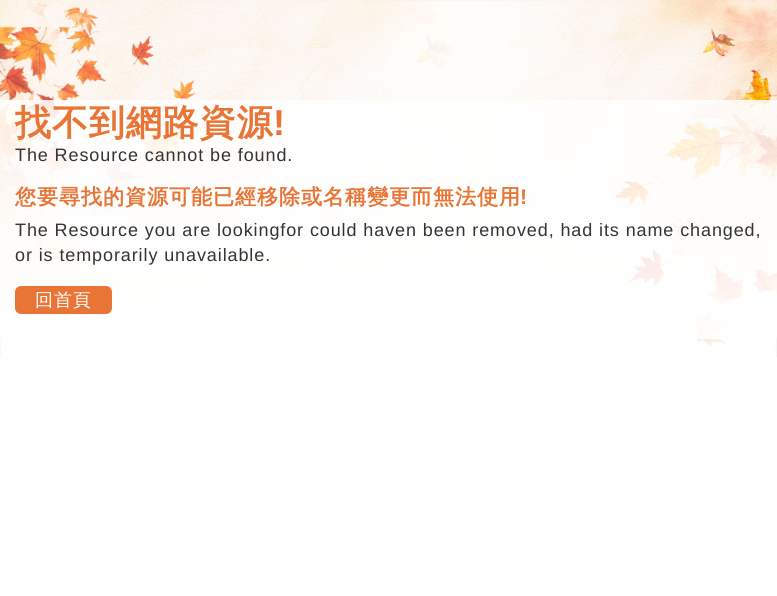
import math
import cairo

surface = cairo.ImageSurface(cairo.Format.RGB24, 777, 596)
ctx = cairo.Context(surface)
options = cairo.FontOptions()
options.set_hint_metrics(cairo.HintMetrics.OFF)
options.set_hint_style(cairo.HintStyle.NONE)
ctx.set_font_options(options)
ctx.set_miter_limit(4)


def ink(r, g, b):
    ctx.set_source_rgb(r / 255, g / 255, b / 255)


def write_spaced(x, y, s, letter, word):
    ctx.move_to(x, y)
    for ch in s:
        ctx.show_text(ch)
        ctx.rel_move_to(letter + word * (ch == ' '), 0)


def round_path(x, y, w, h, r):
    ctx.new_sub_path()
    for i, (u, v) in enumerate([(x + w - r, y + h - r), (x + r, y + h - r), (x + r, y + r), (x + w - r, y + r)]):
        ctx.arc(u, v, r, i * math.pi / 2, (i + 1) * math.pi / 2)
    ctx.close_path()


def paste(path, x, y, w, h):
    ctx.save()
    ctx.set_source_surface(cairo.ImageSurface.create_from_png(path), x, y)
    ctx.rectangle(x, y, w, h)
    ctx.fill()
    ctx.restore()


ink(255, 255, 255)
ctx.paint()
paste("pic1.png", 0, 0, 777, 357)
ctx.set_source_rgba(1, 1, 1, 0.85)
ctx.rectangle(0, 100, 777, 239)
ctx.fill()
ctx.select_font_face("WenQuanYi Zen Hei", cairo.FontSlant.NORMAL, cairo.FontWeight.BOLD)
ctx.set_font_size(36)
ink(232, 117, 54)
write_spaced(15, 135, "找不到網路資源", 0.9, 0)
ctx.select_font_face("Liberation Sans", cairo.FontSlant.NORMAL, cairo.FontWeight.BOLD)
write_spaced(273, 135, "!", 0.9, 0)
ctx.select_font_face("Liberation Sans")
ctx.set_font_size(18)
ink(51, 51, 51)
write_spaced(15, 161, "The Resource cannot be found.", 0.9, 0)
ctx.select_font_face("WenQuanYi Zen Hei", cairo.FontSlant.NORMAL, cairo.FontWeight.BOLD)
ctx.set_font_size(21.1)
ink(232, 117, 54)
write_spaced(15, 204, "您要尋找的資源可能已經移除或名稱變更而無法使用", 0.9, 0)
ctx.select_font_face("Liberation Sans", cairo.FontSlant.NORMAL, cairo.FontWeight.BOLD)
write_spaced(520, 204, "!", 0.9, 0)
ctx.select_font_face("Liberation Sans")
ctx.set_font_size(18)
ink(51, 51, 51)
write_spaced(15, 236, "The Resource you are lookingfor could haven been removed, had its name changed,", 0.9, 0)
write_spaced(15, 261, "or is temporarily unavailable.", 0.9, 0)
ink(232, 117, 54)
round_path(15, 286, 97, 28, 6)
ctx.fill()
ctx.select_font_face("WenQuanYi Zen Hei Medium")
ink(255, 255, 255)
write_spaced(35, 306, "回首頁", 0.9, 0)
surface.write_to_png("screenshot.png")
